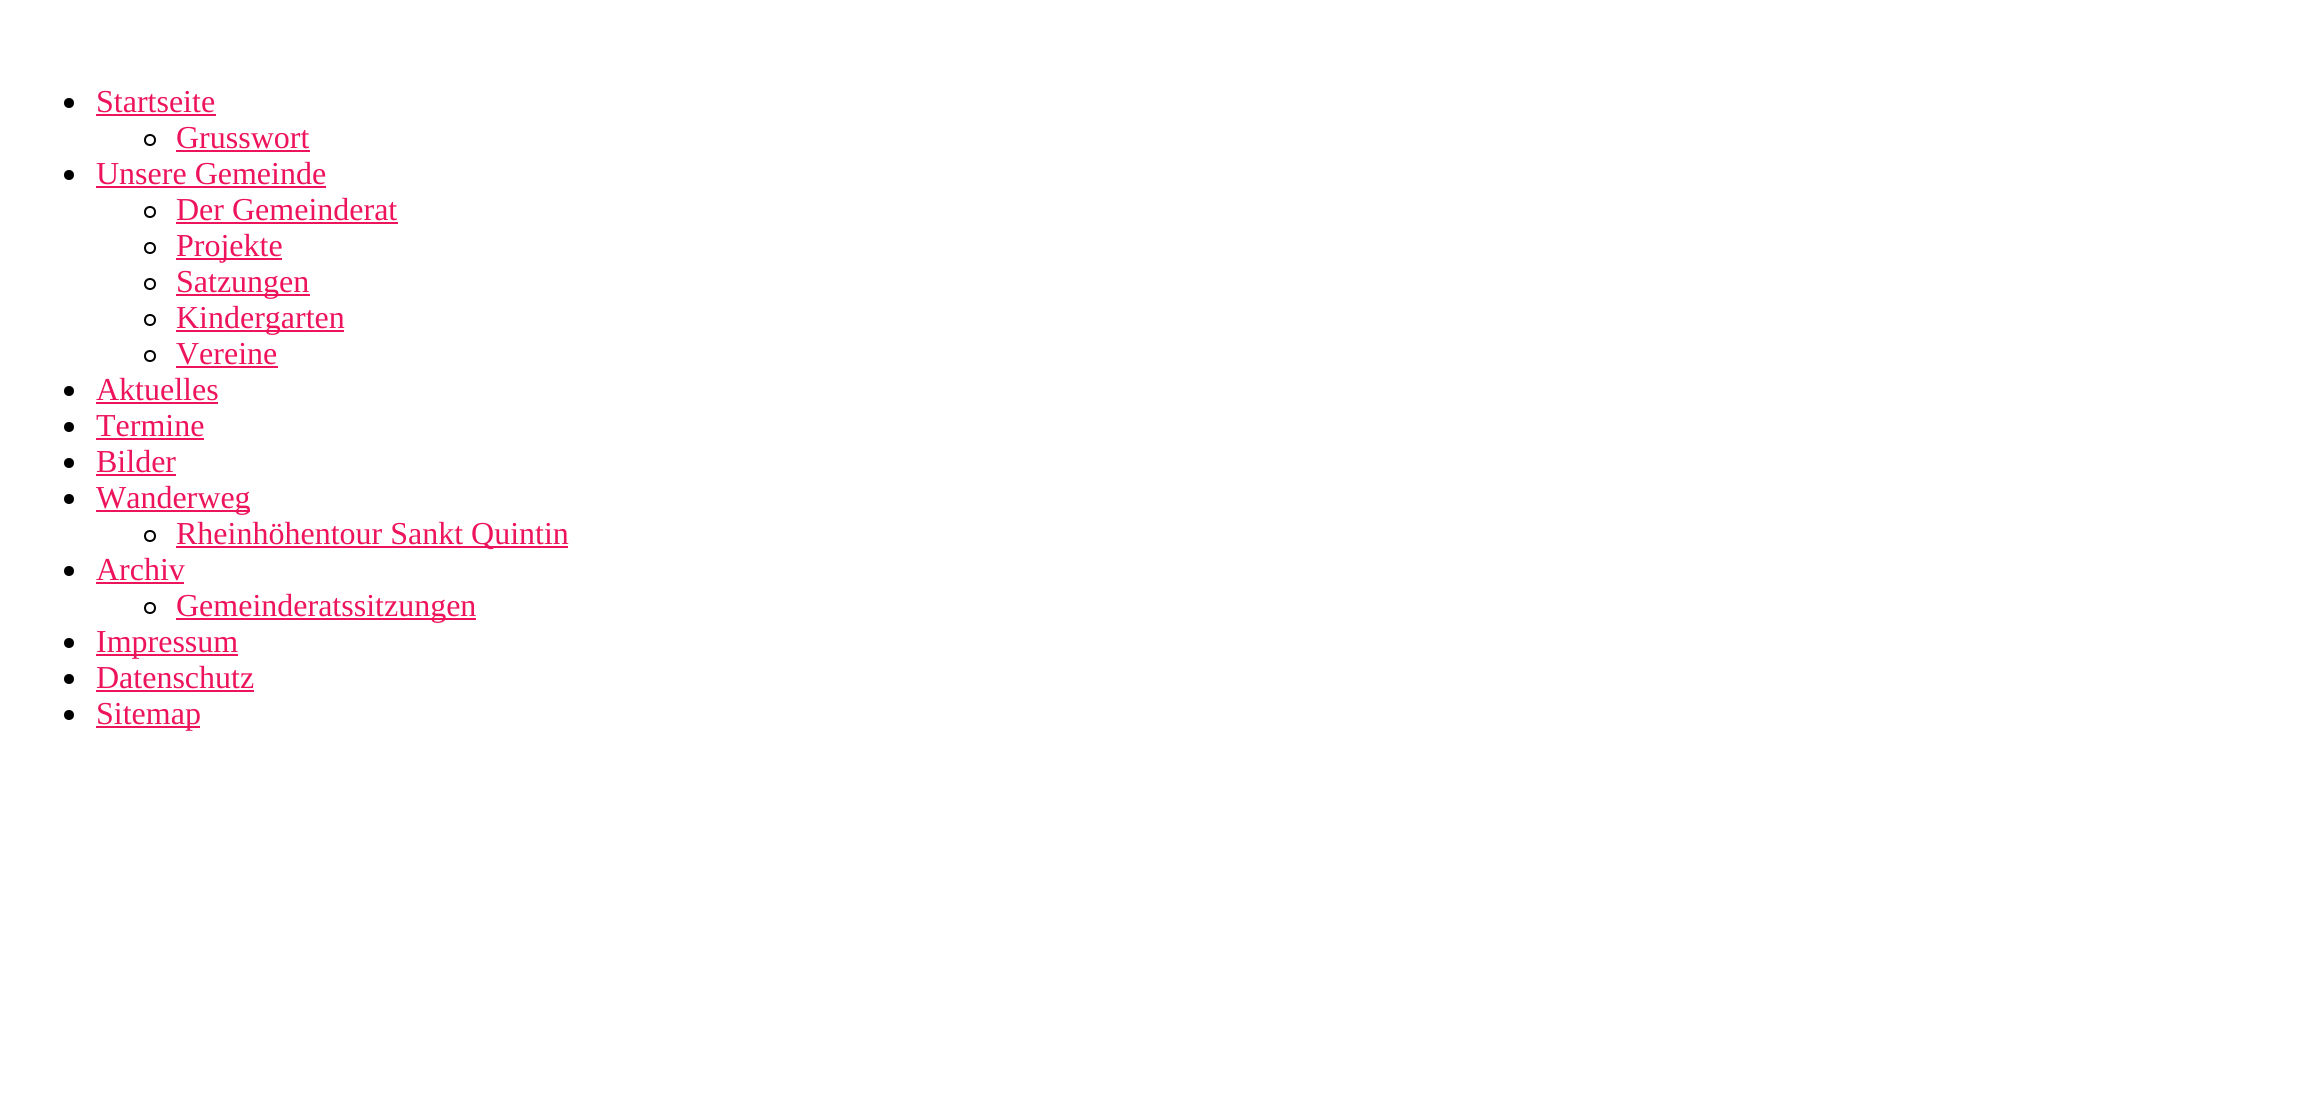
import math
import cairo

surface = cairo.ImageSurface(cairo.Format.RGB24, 2323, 1096)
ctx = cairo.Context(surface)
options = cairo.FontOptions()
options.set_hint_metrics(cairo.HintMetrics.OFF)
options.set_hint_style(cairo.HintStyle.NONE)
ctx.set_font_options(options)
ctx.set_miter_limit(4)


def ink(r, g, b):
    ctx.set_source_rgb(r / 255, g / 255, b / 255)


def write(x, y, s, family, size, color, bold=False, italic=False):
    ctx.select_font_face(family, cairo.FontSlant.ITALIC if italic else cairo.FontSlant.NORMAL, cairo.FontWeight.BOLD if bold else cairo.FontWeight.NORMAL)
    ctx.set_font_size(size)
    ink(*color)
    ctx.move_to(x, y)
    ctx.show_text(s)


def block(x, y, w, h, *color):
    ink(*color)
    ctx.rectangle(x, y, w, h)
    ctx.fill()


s1 = dict(family="Liberation Serif", size=32, color=(237, 20, 91))

ink(255, 255, 255)
ctx.paint()
ink(0, 0, 0)
ctx.arc(69, 103, 5, 0, 2 * math.pi)
ctx.fill()
write(96, 112, "Startseite", **s1)
block(96, 114, 120, 2, 237, 20, 91)
ctx.new_path()
ctx.arc(150, 140, 5, 0, 2 * math.pi)
ink(0, 0, 0)
ctx.stroke()
write(176, 148, "Grusswort", **s1)
block(176, 150, 134, 2, 237, 20, 91)
ink(0, 0, 0)
ctx.new_path()
ctx.arc(69, 175, 5, 0, 2 * math.pi)
ctx.fill()
write(96, 184, "Unsere Gemeinde", **s1)
block(96, 186, 230, 2, 237, 20, 91)
ctx.new_path()
ctx.arc(150, 212, 5, 0, 2 * math.pi)
ink(0, 0, 0)
ctx.stroke()
write(176, 220, "Der Gemeinderat", **s1)
block(176, 222, 222, 2, 237, 20, 91)
ctx.new_path()
ctx.arc(150, 248, 5, 0, 2 * math.pi)
ink(0, 0, 0)
ctx.stroke()
block(176, 258, 106, 2, 237, 20, 91)
write(176, 256, "Projekte", **s1)
ctx.new_path()
ctx.arc(150, 284, 5, 0, 2 * math.pi)
ink(0, 0, 0)
ctx.stroke()
block(176, 294, 134, 2, 237, 20, 91)
write(176, 292, "Satzungen", **s1)
ctx.new_path()
ctx.arc(150, 320, 5, 0, 2 * math.pi)
ink(0, 0, 0)
ctx.stroke()
block(176, 330, 168, 2, 237, 20, 91)
write(176, 328, "Kindergarten", **s1)
ctx.new_path()
ctx.arc(150, 356, 5, 0, 2 * math.pi)
ink(0, 0, 0)
ctx.stroke()
write(176, 364, "Vereine", **s1)
block(176, 366, 102, 2, 237, 20, 91)
ink(0, 0, 0)
ctx.new_path()
ctx.arc(69, 391, 5, 0, 2 * math.pi)
ctx.fill()
write(96, 400, "Aktuelles", **s1)
block(96, 402, 122, 2, 237, 20, 91)
ink(0, 0, 0)
ctx.new_path()
ctx.arc(69, 427, 5, 0, 2 * math.pi)
ctx.fill()
write(96, 436, "Termine", **s1)
block(96, 438, 108, 2, 237, 20, 91)
ink(0, 0, 0)
ctx.new_path()
ctx.arc(69, 463, 5, 0, 2 * math.pi)
ctx.fill()
write(96, 472, "Bilder", **s1)
block(96, 474, 80, 2, 237, 20, 91)
ink(0, 0, 0)
ctx.new_path()
ctx.arc(69, 499, 5, 0, 2 * math.pi)
ctx.fill()
block(96, 510, 154, 2, 237, 20, 91)
write(96, 508, "Wanderweg", **s1)
ctx.new_path()
ctx.arc(150, 536, 5, 0, 2 * math.pi)
ink(0, 0, 0)
ctx.stroke()
block(176, 546, 392, 2, 237, 20, 91)
write(176, 544, "Rheinhöhentour Sankt Quintin", **s1)
ink(0, 0, 0)
ctx.new_path()
ctx.arc(69, 571, 5, 0, 2 * math.pi)
ctx.fill()
write(96, 580, "Archiv", **s1)
block(96, 582, 88, 2, 237, 20, 91)
ctx.new_path()
ctx.arc(150, 608, 5, 0, 2 * math.pi)
ink(0, 0, 0)
ctx.stroke()
block(176, 618, 300, 2, 237, 20, 91)
write(176, 616, "Gemeinderatssitzungen", **s1)
ink(0, 0, 0)
ctx.new_path()
ctx.arc(69, 643, 5, 0, 2 * math.pi)
ctx.fill()
block(96, 654, 142, 2, 237, 20, 91)
write(96, 652, "Impressum", **s1)
ink(0, 0, 0)
ctx.new_path()
ctx.arc(69, 679, 5, 0, 2 * math.pi)
ctx.fill()
write(96, 688, "Datenschutz", **s1)
block(96, 690, 158, 2, 237, 20, 91)
ink(0, 0, 0)
ctx.new_path()
ctx.arc(69, 715, 5, 0, 2 * math.pi)
ctx.fill()
block(96, 726, 104, 2, 237, 20, 91)
write(96, 724, "Sitemap", **s1)
surface.write_to_png("screenshot.png")
